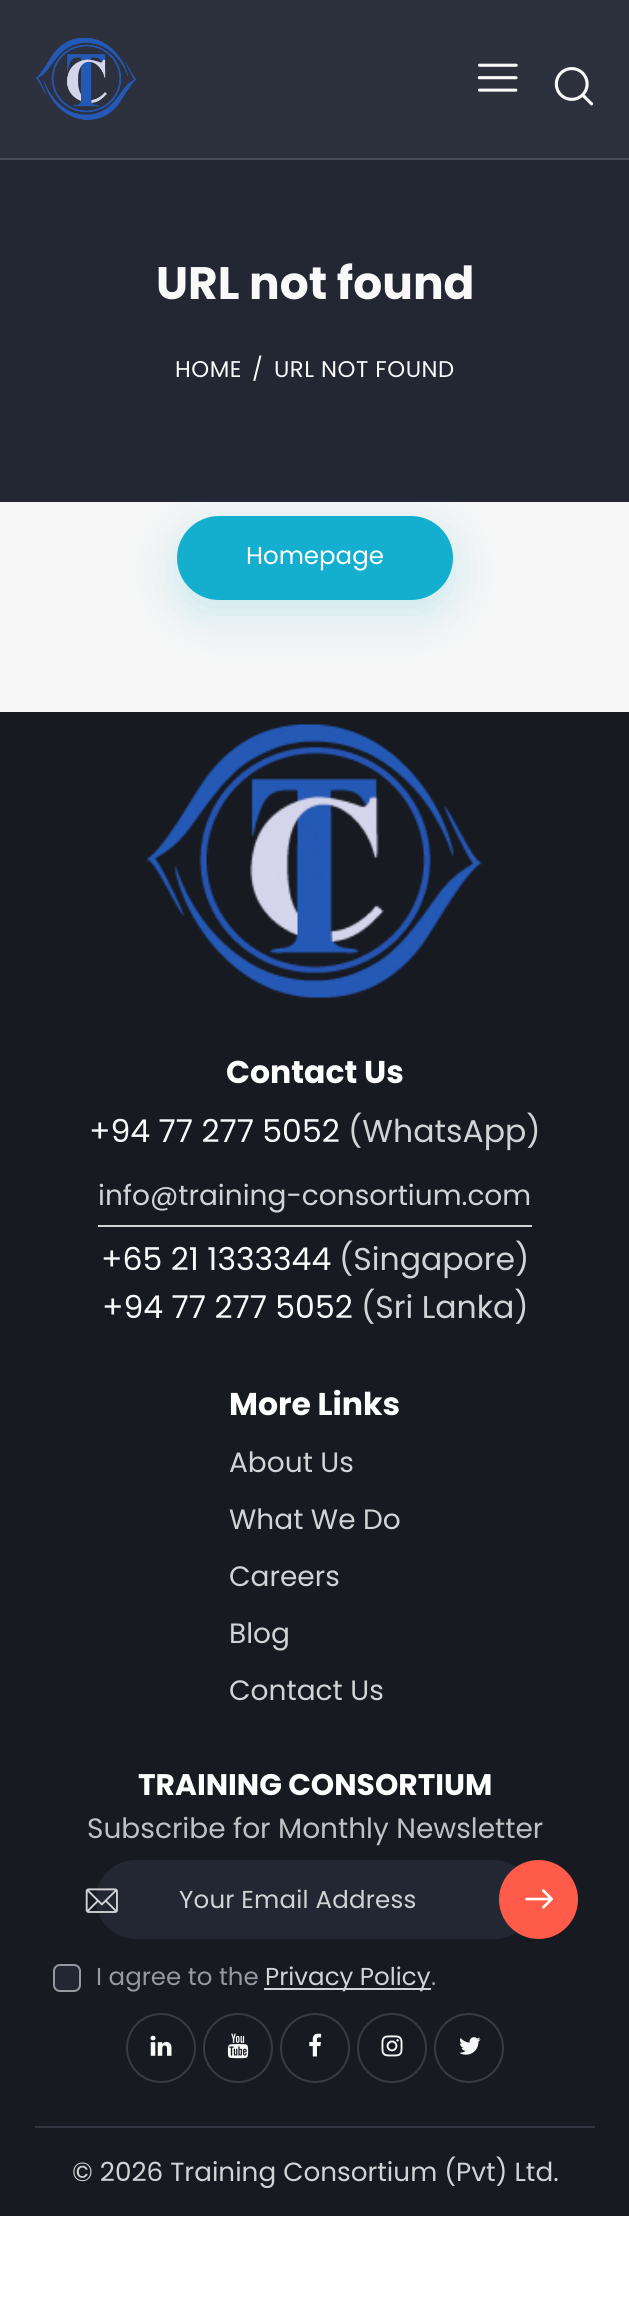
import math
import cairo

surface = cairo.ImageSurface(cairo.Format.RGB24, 629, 2313)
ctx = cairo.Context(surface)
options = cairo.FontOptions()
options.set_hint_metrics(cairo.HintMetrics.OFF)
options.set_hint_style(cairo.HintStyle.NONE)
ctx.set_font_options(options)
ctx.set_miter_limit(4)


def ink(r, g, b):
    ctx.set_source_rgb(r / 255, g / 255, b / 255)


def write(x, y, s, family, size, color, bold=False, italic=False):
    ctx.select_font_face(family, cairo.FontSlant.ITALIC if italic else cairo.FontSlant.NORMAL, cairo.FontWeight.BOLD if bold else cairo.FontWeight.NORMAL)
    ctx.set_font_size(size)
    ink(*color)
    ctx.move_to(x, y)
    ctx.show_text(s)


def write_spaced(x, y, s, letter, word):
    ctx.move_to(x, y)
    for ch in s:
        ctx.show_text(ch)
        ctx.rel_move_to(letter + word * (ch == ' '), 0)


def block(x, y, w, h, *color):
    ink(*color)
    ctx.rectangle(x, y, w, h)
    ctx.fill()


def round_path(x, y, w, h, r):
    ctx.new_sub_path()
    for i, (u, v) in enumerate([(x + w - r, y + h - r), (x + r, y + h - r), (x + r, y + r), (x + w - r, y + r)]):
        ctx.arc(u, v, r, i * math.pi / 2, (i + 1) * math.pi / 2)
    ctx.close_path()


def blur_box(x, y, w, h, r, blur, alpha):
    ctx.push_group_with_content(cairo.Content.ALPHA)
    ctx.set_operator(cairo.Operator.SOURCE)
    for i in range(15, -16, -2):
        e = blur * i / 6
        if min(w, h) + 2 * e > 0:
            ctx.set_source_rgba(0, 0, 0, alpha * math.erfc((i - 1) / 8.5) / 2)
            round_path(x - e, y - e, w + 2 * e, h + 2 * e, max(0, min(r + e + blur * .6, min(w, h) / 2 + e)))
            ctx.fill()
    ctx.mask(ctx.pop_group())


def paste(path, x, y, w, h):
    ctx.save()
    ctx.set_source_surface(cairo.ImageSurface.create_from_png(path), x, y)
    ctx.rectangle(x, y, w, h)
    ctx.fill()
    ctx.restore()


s1 = dict(family="Poppins", size=45.5, color=(249, 249, 249), bold=True)
s2 = dict(family="Poppins", size=24.5, color=(255, 255, 255))
s3 = dict(family="Poppins", size=31.5, color=(255, 255, 255), bold=True)
s4 = dict(family="Poppins", size=31.5, color=(249, 249, 249))
s5 = dict(family="Poppins", size=31.5, color=(210, 211, 213))
s6 = dict(family="Poppins", size=28, color=(210, 211, 213))
s7 = dict(family="Poppins", size=29.75, color=(255, 255, 255), bold=True)
s8 = dict(family="Poppins", size=28, color=(191, 193, 195))
s9 = dict(family="Poppins", size=24.5, color=(150, 153, 159))
s10 = dict(family="Poppins", size=24.5, color=(210, 211, 213))
s11 = dict(family="Poppins", size=26.25, color=(210, 211, 213))

ink(255, 255, 255)
ctx.paint()
block(0, 0, 629, 158, 44, 49, 61)
block(0, 158, 629, 2, 71, 75, 85)
paste("pic1.png", 35, 38, 102, 82)
paste("pic2.png", 477, 63, 41, 29)
paste("pic3.png", 554, 67, 40, 39)
block(0, 502, 629, 210, 246, 246, 246)
ink(20, 174, 207)
blur_box(177, 529, 276, 84, 42, 22, 0.2)
block(0, 160, 629, 342, 34, 39, 51)
write(156, 299, "URL not found", **s1)
ctx.select_font_face("Poppins")
ctx.set_font_size(22.75)
write_spaced(175, 377, "HOME", 0.5, 0)
write_spaced(252, 377, "/", 0.5, 0)
write_spaced(274, 377, "URL NOT FOUND", 0.5, 0)
ink(20, 174, 207)
round_path(177, 516, 276, 84, 42)
ctx.fill()
write(246, 564, "Homepage", **s2)
block(0, 712, 629, 1504, 23, 26, 33)
paste("pic4.png", 146, 724, 336, 274)
write(226, 1083, "Contact Us", **s3)
write(89, 1142, "+94 77 277 5052", **s4)
write(348, 1142, "(WhatsApp)", **s5)
write(98, 1205, "info@training-consortium.com", **s6)
block(98, 1225, 434, 2, 210, 211, 213)
write(101, 1270, "+65 21 1333344", **s4)
write(339, 1270, "(Singapore)", **s5)
write(102, 1318, "+94 77 277 5052", **s4)
write(361, 1318, "(Sri Lanka)", **s5)
write(229, 1415, "More Links", **s3)
write(229, 1472, "About Us", **s6)
write(229, 1529, "What We Do", **s6)
write(229, 1586, "Careers", **s6)
write(229, 1643, "Blog", **s6)
write(229, 1700, "Contact Us", **s6)
write(138, 1795, "TRAINING CONSORTIUM", **s7)
write(87, 1838, "Subscribe for Monthly Newsletter", **s8)
ink(34, 39, 51)
round_path(96, 1860, 438, 79, 39.5)
ctx.fill()
paste("pic5.png", 85, 1888, 33, 25)
ctx.set_font_size(24.5)
ink(210, 211, 213)
write_spaced(179, 1908, "Your Email Address", 0.2, 0)
ink(255, 91, 74)
ctx.new_path()
ctx.arc(538.5, 1899.5, 39.5, 0, 2 * math.pi)
ctx.fill()
paste("pic6.png", 525, 1889, 28, 20)
ink(34, 39, 51)
round_path(54, 1965, 26, 26, 6)
ctx.fill_preserve()
ink(150, 153, 159)
ctx.stroke()
write(96, 1985, "I agree to the", **s9)
block(264, 1988, 167, 2, 210, 211, 213)
write(265, 1985, "Privacy Policy", **s10)
write(431, 1985, ".", **s9)
ctx.new_path()
ctx.arc(161, 2048, 34, 0, 2 * math.pi)
ink(57, 59, 65)
ctx.stroke()
paste("pic7.png", 150, 2035, 22, 21)
ctx.arc(238, 2048, 34, 0, 2 * math.pi)
ctx.stroke()
paste("pic8.png", 227, 2033, 22, 26)
ctx.arc(315, 2048, 34, 0, 2 * math.pi)
ctx.stroke()
paste("pic9.png", 309, 2033, 13, 24)
ctx.arc(392, 2048, 34, 0, 2 * math.pi)
ctx.stroke()
paste("pic10.png", 381, 2035, 22, 22)
ctx.arc(469, 2048, 34, 0, 2 * math.pi)
ctx.stroke()
paste("pic11.png", 459, 2037, 22, 18)
block(35, 2126, 560, 2, 50, 54, 65)
write(72, 2181, "© 2026 Training Consortium (Pvt) Ltd.", **s11)
surface.write_to_png("screenshot.png")
